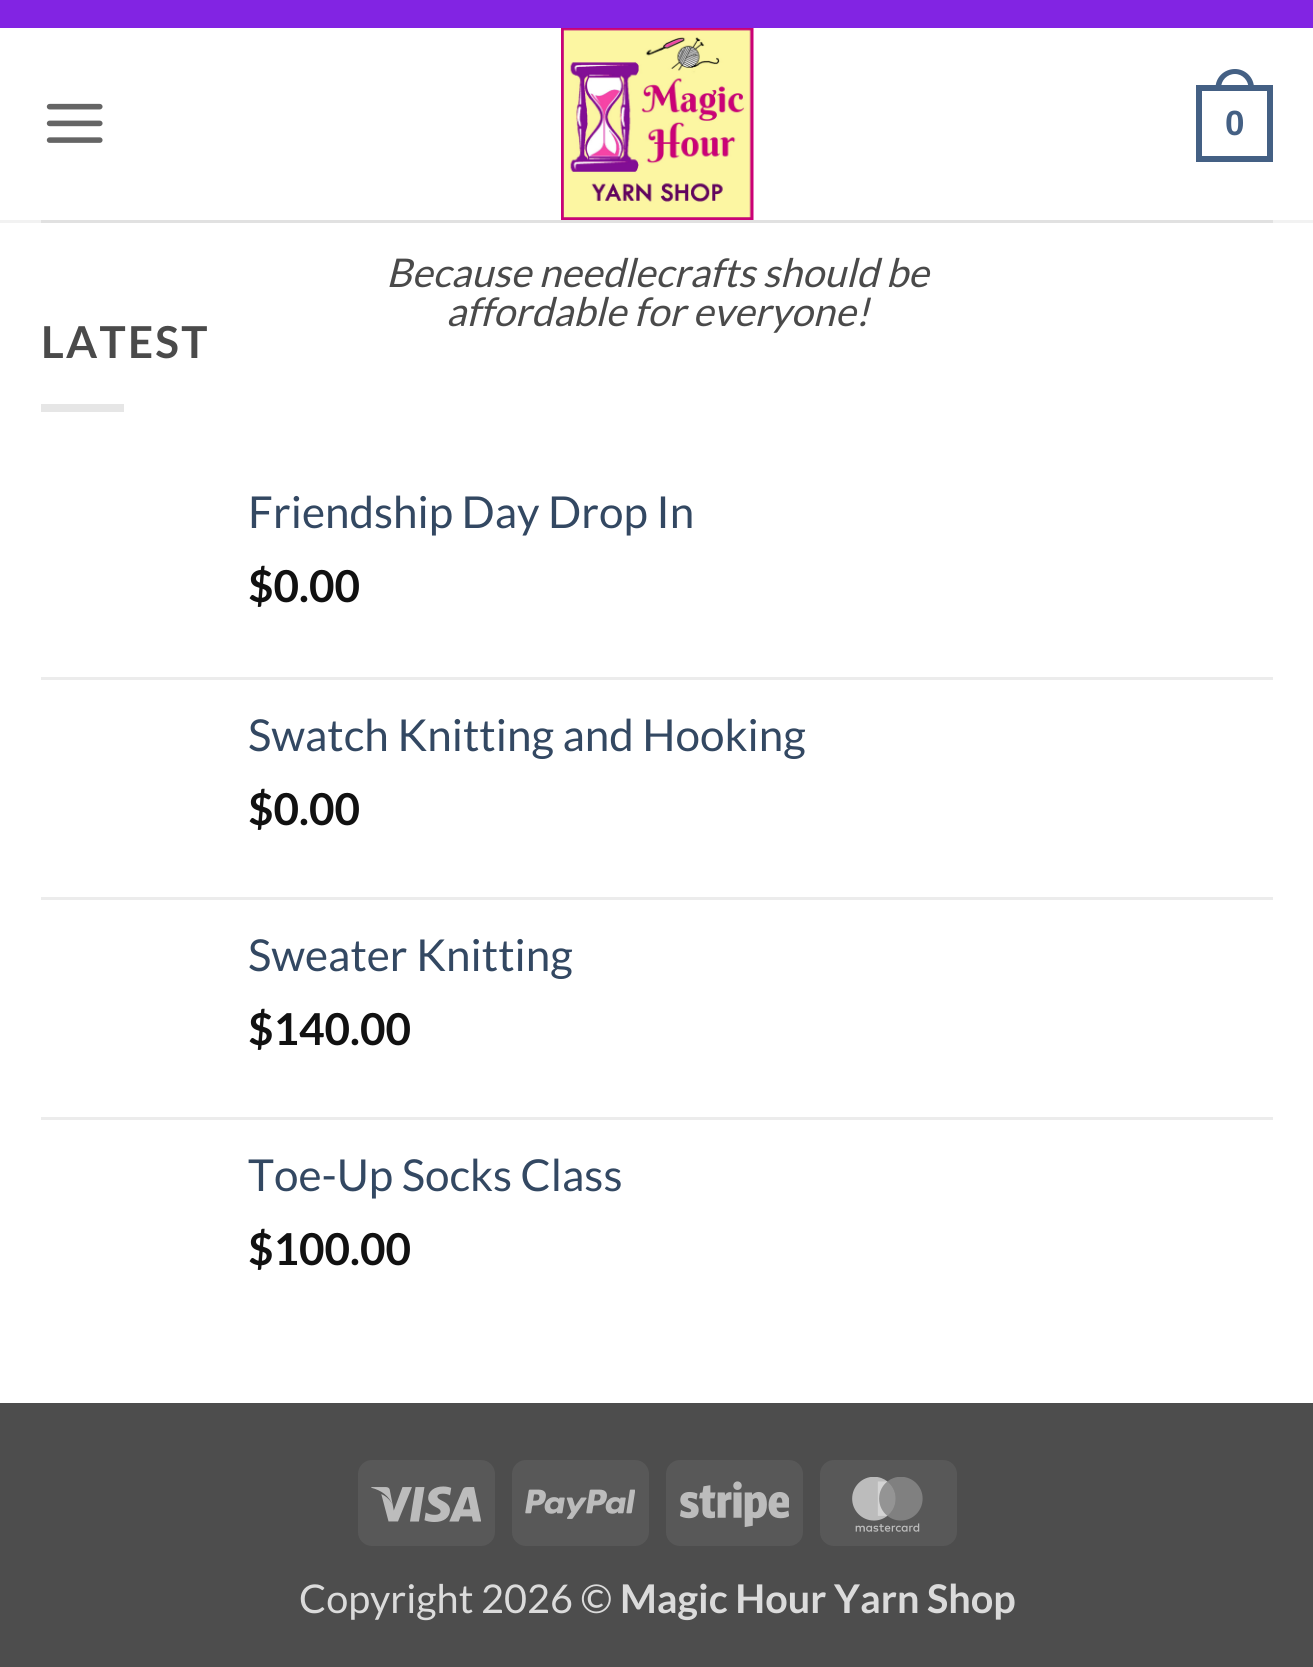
import math
import cairo

surface = cairo.ImageSurface(cairo.Format.RGB24, 1313, 1667)
ctx = cairo.Context(surface)
options = cairo.FontOptions()
options.set_hint_metrics(cairo.HintMetrics.OFF)
options.set_hint_style(cairo.HintStyle.NONE)
ctx.set_font_options(options)
ctx.set_miter_limit(4)


def ink(r, g, b):
    ctx.set_source_rgb(r / 255, g / 255, b / 255)


def write(x, y, s, family, size, color, bold=False, italic=False):
    ctx.select_font_face(family, cairo.FontSlant.ITALIC if italic else cairo.FontSlant.NORMAL, cairo.FontWeight.BOLD if bold else cairo.FontWeight.NORMAL)
    ctx.set_font_size(size)
    ink(*color)
    ctx.move_to(x, y)
    ctx.show_text(s)


def write_spaced(x, y, s, letter, word):
    ctx.move_to(x, y)
    for ch in s:
        ctx.show_text(ch)
        ctx.rel_move_to(letter + word * (ch == ' '), 0)


def block(x, y, w, h, *color):
    ink(*color)
    ctx.rectangle(x, y, w, h)
    ctx.fill()


def round_path(x, y, w, h, r):
    ctx.new_sub_path()
    for i, (u, v) in enumerate([(x + w - r, y + h - r), (x + r, y + h - r), (x + r, y + r), (x + w - r, y + r)]):
        ctx.arc(u, v, r, i * math.pi / 2, (i + 1) * math.pi / 2)
    ctx.close_path()


def paste(path, x, y, w, h):
    ctx.save()
    ctx.set_source_surface(cairo.ImageSurface.create_from_png(path), x, y)
    ctx.rectangle(x, y, w, h)
    ctx.fill()
    ctx.restore()


s1 = dict(family="Liberation Sans", size=35, color=(68, 96, 132), bold=True)
s2 = dict(family="Lato", size=39.6, color=(74, 74, 74), italic=True)
s3 = dict(family="Lato", size=44, color=(51, 72, 98))
s4 = dict(family="Lato", size=44, color=(17, 17, 17), bold=True)
s5 = dict(family="Lato", size=39.6, color=(219, 219, 219))
s6 = dict(family="Lato", size=39.6, color=(219, 219, 219), bold=True)

ink(255, 255, 255)
ctx.paint()
block(0, 0, 1313, 28, 130, 36, 227)
paste("pic1.png", 46, 103, 57, 40)
ctx.rectangle(1199, 88, 71, 71)
ink(68, 96, 132)
ctx.set_line_width(6)
ctx.stroke()
ctx.set_fill_rule(cairo.FillRule.EVEN_ODD)
ctx.new_path()
ctx.move_to(1235, 69)
ctx.curve_to(1245.5, 69, 1254, 77.5, 1254, 88)
ctx.line_to(1254, 91)
ctx.line_to(1215.5, 91)
ctx.line_to(1215.5, 88)
ctx.curve_to(1215.5, 77.5, 1224, 69, 1235, 69)
ctx.close_path()
ctx.move_to(1235, 74)
ctx.curve_to(1242.5, 74, 1248.5, 80.5, 1248.5, 88)
ctx.line_to(1248.5, 91)
ctx.line_to(1221, 91)
ctx.line_to(1221, 88)
ctx.curve_to(1221, 80.5, 1227, 74, 1235, 74)
ctx.close_path()
ctx.fill()
write(1225, 135, "0", **s1)
paste("pic2.png", 561, 28, 193, 192)
write(386, 287, "Because needlecrafts should be", **s2)
write(446, 326, "affordable for everyone!", **s2)
block(0, 220, 1313, 3, 242, 242, 242)
block(41, 220, 1232, 3, 225, 225, 225)
ctx.select_font_face("Lato", cairo.FontSlant.NORMAL, cairo.FontWeight.BOLD)
ctx.set_font_size(44)
ink(74, 74, 74)
write_spaced(41, 358, "LATEST", 2.25, 0)
block(41, 404, 83, 8, 230, 230, 230)
write(248, 528, "Friendship Day Drop In", **s3)
write(248, 602, "$0.00", **s4)
block(41, 677, 1232, 3, 236, 236, 236)
write(248, 751, "Swatch Knitting and Hooking", **s3)
write(248, 825, "$0.00", **s4)
block(41, 897, 1232, 3, 236, 236, 236)
write(248, 971, "Sweater Knitting", **s3)
write(248, 1045, "$140.00", **s4)
block(41, 1117, 1232, 3, 236, 236, 236)
write(248, 1191, "Toe-Up Socks Class", **s3)
write(248, 1265, "$100.00", **s4)
block(0, 1403, 1313, 264, 77, 77, 77)
ink(88, 88, 88)
round_path(358, 1460, 137, 86, 14)
ctx.fill()
paste("pic3.png", 371, 1486, 110, 36)
round_path(512, 1460, 137, 86, 14)
ctx.fill()
paste("pic4.png", 525, 1489, 110, 30)
round_path(666, 1460, 137, 86, 14)
ctx.fill()
paste("pic5.png", 680, 1481, 109, 46)
round_path(820, 1460, 137, 86, 14)
ctx.fill()
paste("pic6.png", 852, 1477, 71, 55)
write(299, 1613, "Copyright 2026 ©", **s5)
write(620, 1613, "Magic Hour Yarn Shop", **s6)
surface.write_to_png("screenshot.png")
